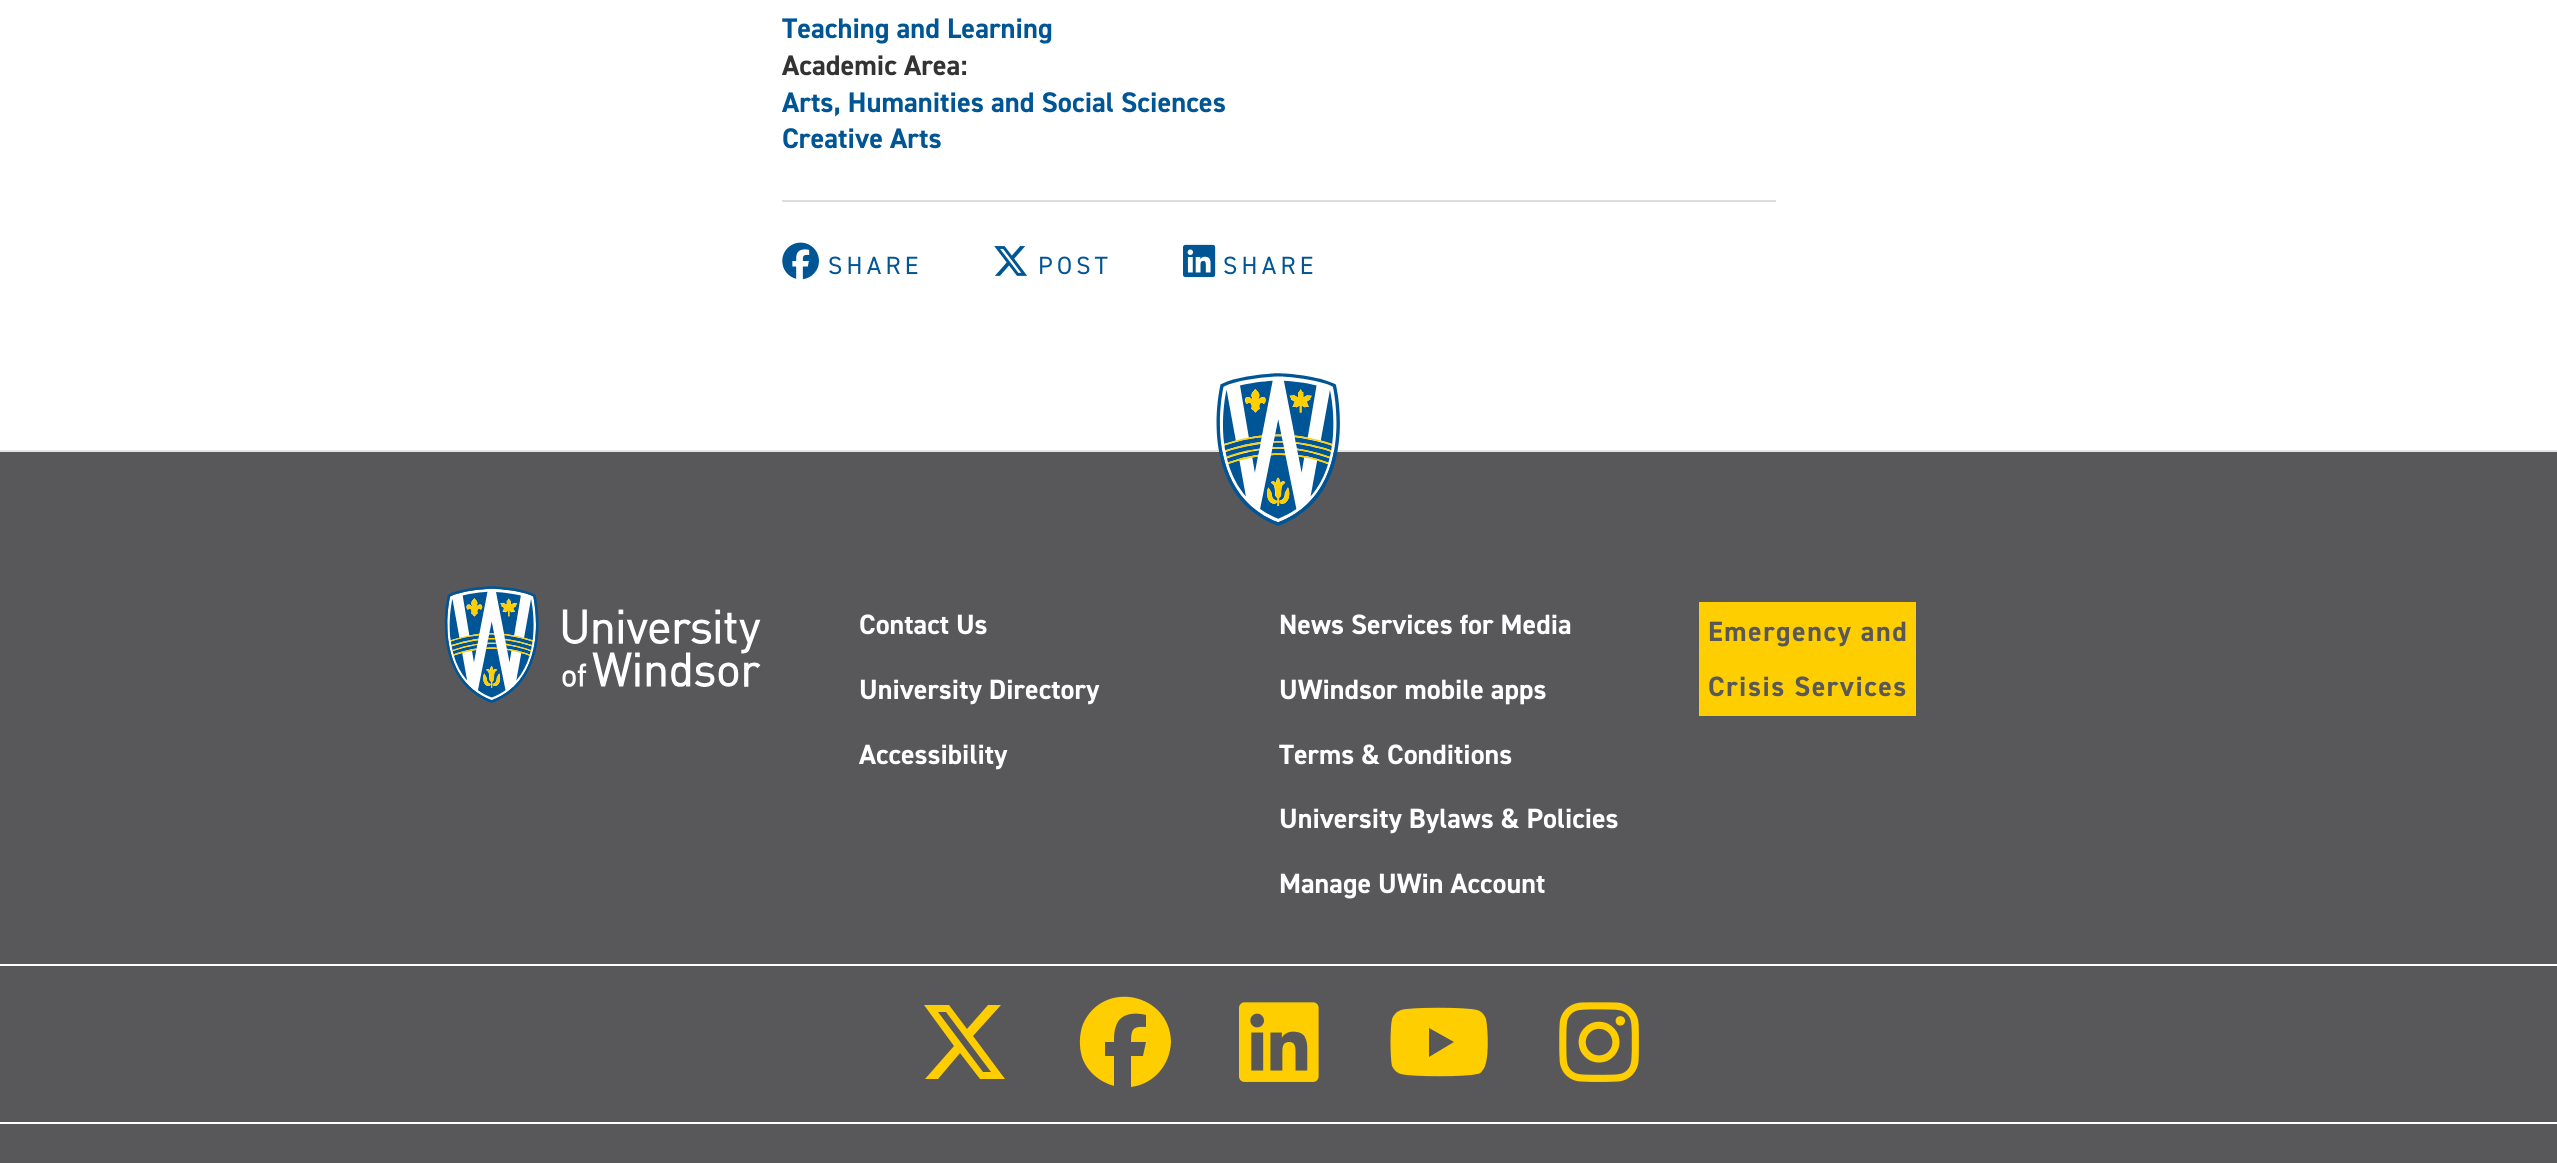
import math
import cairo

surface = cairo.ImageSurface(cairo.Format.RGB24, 2557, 1163)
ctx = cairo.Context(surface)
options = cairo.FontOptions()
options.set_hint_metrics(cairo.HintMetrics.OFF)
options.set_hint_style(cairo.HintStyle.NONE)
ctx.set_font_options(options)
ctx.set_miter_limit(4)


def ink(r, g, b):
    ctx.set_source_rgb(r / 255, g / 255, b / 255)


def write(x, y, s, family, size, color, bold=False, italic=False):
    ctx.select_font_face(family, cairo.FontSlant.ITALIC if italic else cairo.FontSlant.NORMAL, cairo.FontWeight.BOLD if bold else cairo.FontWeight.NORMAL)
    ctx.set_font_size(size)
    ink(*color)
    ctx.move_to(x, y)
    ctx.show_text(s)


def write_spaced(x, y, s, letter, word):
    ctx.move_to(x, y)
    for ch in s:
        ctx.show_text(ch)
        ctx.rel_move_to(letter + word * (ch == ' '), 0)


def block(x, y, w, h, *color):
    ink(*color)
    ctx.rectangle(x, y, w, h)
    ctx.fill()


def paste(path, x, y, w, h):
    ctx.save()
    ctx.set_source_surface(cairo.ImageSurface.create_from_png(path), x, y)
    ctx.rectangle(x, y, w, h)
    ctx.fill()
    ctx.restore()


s1 = dict(family="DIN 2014", size=28.4, color=(0, 85, 149), bold=True)
s2 = dict(family="DIN 2014", size=28.4, color=(51, 51, 51), bold=True)
s3 = dict(family="DIN 2014", size=28, color=(255, 255, 255), bold=True)

ink(255, 255, 255)
ctx.paint()
block(782, 200, 994, 2, 221, 221, 221)
write(782, 38, "Teaching and Learning", **s1)
write(782, 75, "Academic Area:", **s2)
write(782, 112, "Arts, Humanities and Social Sciences", **s1)
write(782, 148, "Creative Arts", **s1)
paste("pic1.png", 782, 242, 37, 38)
ctx.select_font_face("DIN 2014")
ctx.set_font_size(25)
write_spaced(828, 274, "SHARE", 4.25, 0)
paste("pic2.png", 994, 246, 34, 30)
write_spaced(1038, 274, "POST", 4.25, 0)
paste("pic3.png", 1183, 244, 33, 34)
write_spaced(1223, 274, "SHARE", 4.25, 0)
block(0, 452, 2557, 711, 88, 88, 91)
block(0, 450, 2557, 2, 229, 229, 229)
paste("pic4.png", 1216, 373, 124, 153)
paste("pic5.png", 444, 586, 317, 117)
write(859, 634, "Contact Us", **s3)
write(859, 699, "University Directory", **s3)
write(859, 764, "Accessibility", **s3)
write(1279, 634, "News Services for Media", **s3)
write(1279, 699, "UWindsor mobile apps", **s3)
write(1279, 764, "Terms & Conditions", **s3)
write(1279, 828, "University Bylaws & Policies", **s3)
write(1279, 893, "Manage UWin Account", **s3)
block(1699, 602, 217, 114, 255, 206, 0)
ink(88, 88, 91)
write_spaced(1708, 641, "Emergency and", 1.5, 0)
write_spaced(1708, 696, "Crisis Services", 1.5, 0)
block(0, 964, 2557, 2, 255, 255, 255)
block(0, 1122, 2557, 2, 255, 255, 255)
ink(255, 206, 0)
ctx.new_path()
ctx.move_to(988, 1005)
ctx.line_to(1001, 1005)
ctx.line_to(988, 1005)
ctx.line_to(1001, 1005)
ctx.line_to(973, 1036)
ctx.line_to(1005, 1079)
ctx.line_to(980, 1079)
ctx.line_to(960, 1053)
ctx.line_to(938, 1079)
ctx.line_to(925, 1079)
ctx.line_to(954, 1046)
ctx.line_to(924, 1005)
ctx.line_to(949, 1005)
ctx.line_to(967, 1029)
ctx.close_path()
ctx.move_to(983, 1072)
ctx.line_to(991, 1072)
ctx.line_to(983, 1072)
ctx.line_to(991, 1072)
ctx.line_to(946, 1012)
ctx.line_to(938, 1012)
ctx.close_path()
ctx.fill()
ctx.new_path()
ctx.move_to(1171, 1042)
ctx.curve_to(1170, 993, 1103, 979, 1083, 1024)
ctx.curve_to(1079, 1035, 1079, 1047, 1082, 1057)
ctx.curve_to(1087, 1072, 1100, 1082, 1114, 1086)
ctx.line_to(1114, 1056)
ctx.line_to(1105, 1056)
ctx.line_to(1105, 1042)
ctx.line_to(1114, 1042)
ctx.curve_to(1114, 1037, 1114, 1031, 1116, 1026)
ctx.curve_to(1120, 1013, 1135, 1012, 1146, 1015)
ctx.line_to(1146, 1027)
ctx.curve_to(1133, 1026, 1131, 1029, 1131, 1042)
ctx.line_to(1146, 1042)
ctx.line_to(1143, 1056)
ctx.line_to(1131, 1056)
ctx.line_to(1131, 1087)
ctx.curve_to(1154, 1084, 1170, 1065, 1171, 1042)
ctx.close_path()
ctx.fill()
paste("pic6.png", 1239, 1002, 80, 80)
ctx.new_path()
ctx.move_to(1486, 1019)
ctx.curve_to(1484, 1014, 1481, 1011, 1477, 1010)
ctx.curve_to(1467, 1007, 1410, 1007, 1401, 1010)
ctx.line_to(1397, 1012)
ctx.curve_to(1395, 1014, 1393, 1016, 1392, 1019)
ctx.curve_to(1390, 1028, 1390, 1057, 1392, 1066)
ctx.curve_to(1394, 1070, 1397, 1073, 1401, 1074)
ctx.curve_to(1411, 1077, 1467, 1077, 1477, 1074)
ctx.curve_to(1479, 1074, 1481, 1073, 1482, 1071)
ctx.curve_to(1490, 1064, 1488, 1029, 1486, 1019)
ctx.close_path()
ctx.move_to(1429, 1057)
ctx.line_to(1429, 1028)
ctx.line_to(1429, 1057)
ctx.line_to(1429, 1028)
ctx.line_to(1454, 1042)
ctx.close_path()
ctx.fill()
paste("pic7.png", 1559, 1002, 80, 80)
surface.write_to_png("screenshot.png")
